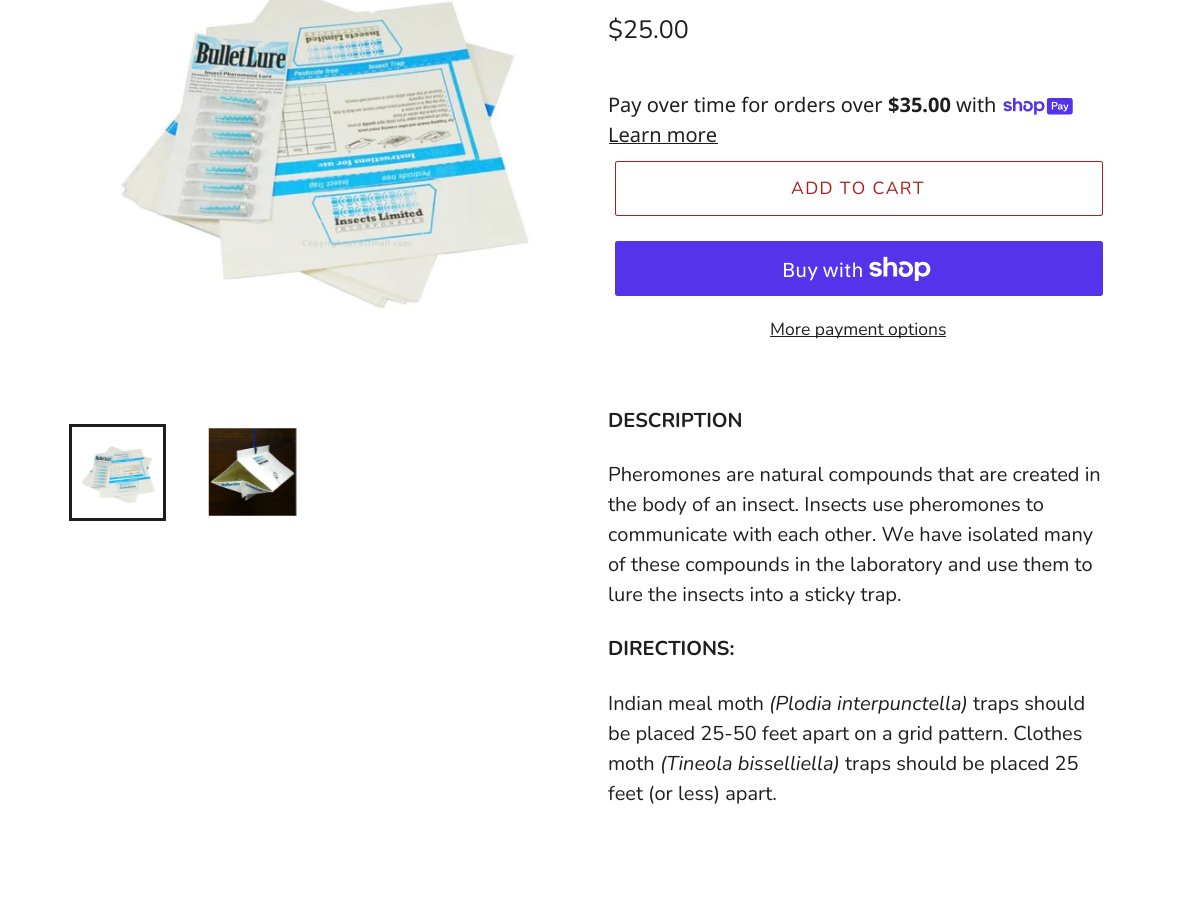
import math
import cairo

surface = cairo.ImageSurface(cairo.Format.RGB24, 1178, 902)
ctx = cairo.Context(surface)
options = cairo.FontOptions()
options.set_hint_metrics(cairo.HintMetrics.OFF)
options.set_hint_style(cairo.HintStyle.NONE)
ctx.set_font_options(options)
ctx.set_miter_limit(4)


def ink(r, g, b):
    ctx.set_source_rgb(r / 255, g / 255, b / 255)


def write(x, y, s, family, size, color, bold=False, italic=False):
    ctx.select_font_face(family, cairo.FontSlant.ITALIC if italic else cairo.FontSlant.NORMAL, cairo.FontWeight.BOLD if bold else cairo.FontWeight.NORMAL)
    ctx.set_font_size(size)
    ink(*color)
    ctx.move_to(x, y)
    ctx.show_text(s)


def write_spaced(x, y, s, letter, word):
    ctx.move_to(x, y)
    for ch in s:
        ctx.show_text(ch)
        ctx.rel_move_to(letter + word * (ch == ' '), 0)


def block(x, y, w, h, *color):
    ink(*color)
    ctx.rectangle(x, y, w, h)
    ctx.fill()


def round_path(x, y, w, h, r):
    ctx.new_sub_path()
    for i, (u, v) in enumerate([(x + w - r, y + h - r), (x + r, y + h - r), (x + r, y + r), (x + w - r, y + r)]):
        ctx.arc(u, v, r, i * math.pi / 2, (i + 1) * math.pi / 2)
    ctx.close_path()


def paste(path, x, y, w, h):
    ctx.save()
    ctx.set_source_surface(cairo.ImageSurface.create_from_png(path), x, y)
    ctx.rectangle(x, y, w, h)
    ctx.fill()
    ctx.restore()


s1 = dict(family="Nunito", size=25, color=(31, 30, 30))
s2 = dict(family="Noto Sans", size=20, color=(31, 30, 30))
s3 = dict(family="Noto Sans", size=20, color=(31, 30, 30), bold=True)
s4 = dict(family="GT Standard", size=20, color=(255, 255, 255))
s5 = dict(family="Nunito", size=17.5, color=(31, 30, 30))
s6 = dict(family="Nunito", size=20, color=(31, 30, 30), bold=True)
s7 = dict(family="Nunito", size=20, color=(31, 30, 30))
s8 = dict(family="Nunito", size=20, color=(31, 30, 30), italic=True)

ink(255, 255, 255)
ctx.paint()
paste("pic1.png", 121, 0, 409, 309)
ctx.rectangle(70.5, 425.5, 94, 94)
ink(31, 30, 30)
ctx.set_line_width(3)
ctx.stroke()
paste("pic2.png", 82, 446, 73, 59)
paste("pic3.png", 208, 428, 89, 88)
write(608, 38, "$25.00", **s1)
write(608, 112, "Pay over time for orders over", **s2)
write(888, 112, "$35.00", **s3)
write(956, 112, "with", **s2)
paste("pic4.png", 1003, 98, 70, 17)
write(608, 142, "Learn more", **s2)
block(609, 143, 109, 1, 31, 30, 30)
round_path(615.5, 161.5, 487, 54, 2)
ink(173, 31, 31)
ctx.set_line_width(1)
ctx.stroke()
ctx.select_font_face("Nunito")
ctx.set_font_size(17.5)
write_spaced(791, 194, "ADD TO CART", 1.4, 0)
ink(84, 51, 235)
round_path(615, 241, 488, 55, 2.5)
ctx.fill()
write(782, 277, "Buy with", **s4)
paste("pic5.png", 869, 256, 62, 25)
block(770, 336, 176, 1, 31, 30, 30)
write(770, 335, "More payment options", **s5)
write(608, 427, "DESCRIPTION", **s6)
write(608, 481, "Pheromones are natural compounds that are created in", **s7)
write(608, 511, "the body of an insect. Insects use pheromones to", **s7)
write(608, 541, "communicate with each other. We have isolated many", **s7)
write(608, 571, "of these compounds in the laboratory and use them to", **s7)
write(608, 601, "lure the insects into a sticky trap.", **s7)
write(608, 655, "DIRECTIONS:", **s6)
write(608, 710, "Indian meal moth", **s7)
write(769, 710, "(Plodia interpunctella)", **s8)
write(973, 710, "traps should", **s7)
write(608, 740, "be placed 25-50 feet apart on a grid pattern. Clothes", **s7)
write(608, 770, "moth", **s7)
write(660, 770, "(Tineola bisselliella)", **s8)
write(845, 770, "traps should be placed 25", **s7)
write(608, 800, "feet (or less) apart.", **s7)
surface.write_to_png("screenshot.png")
